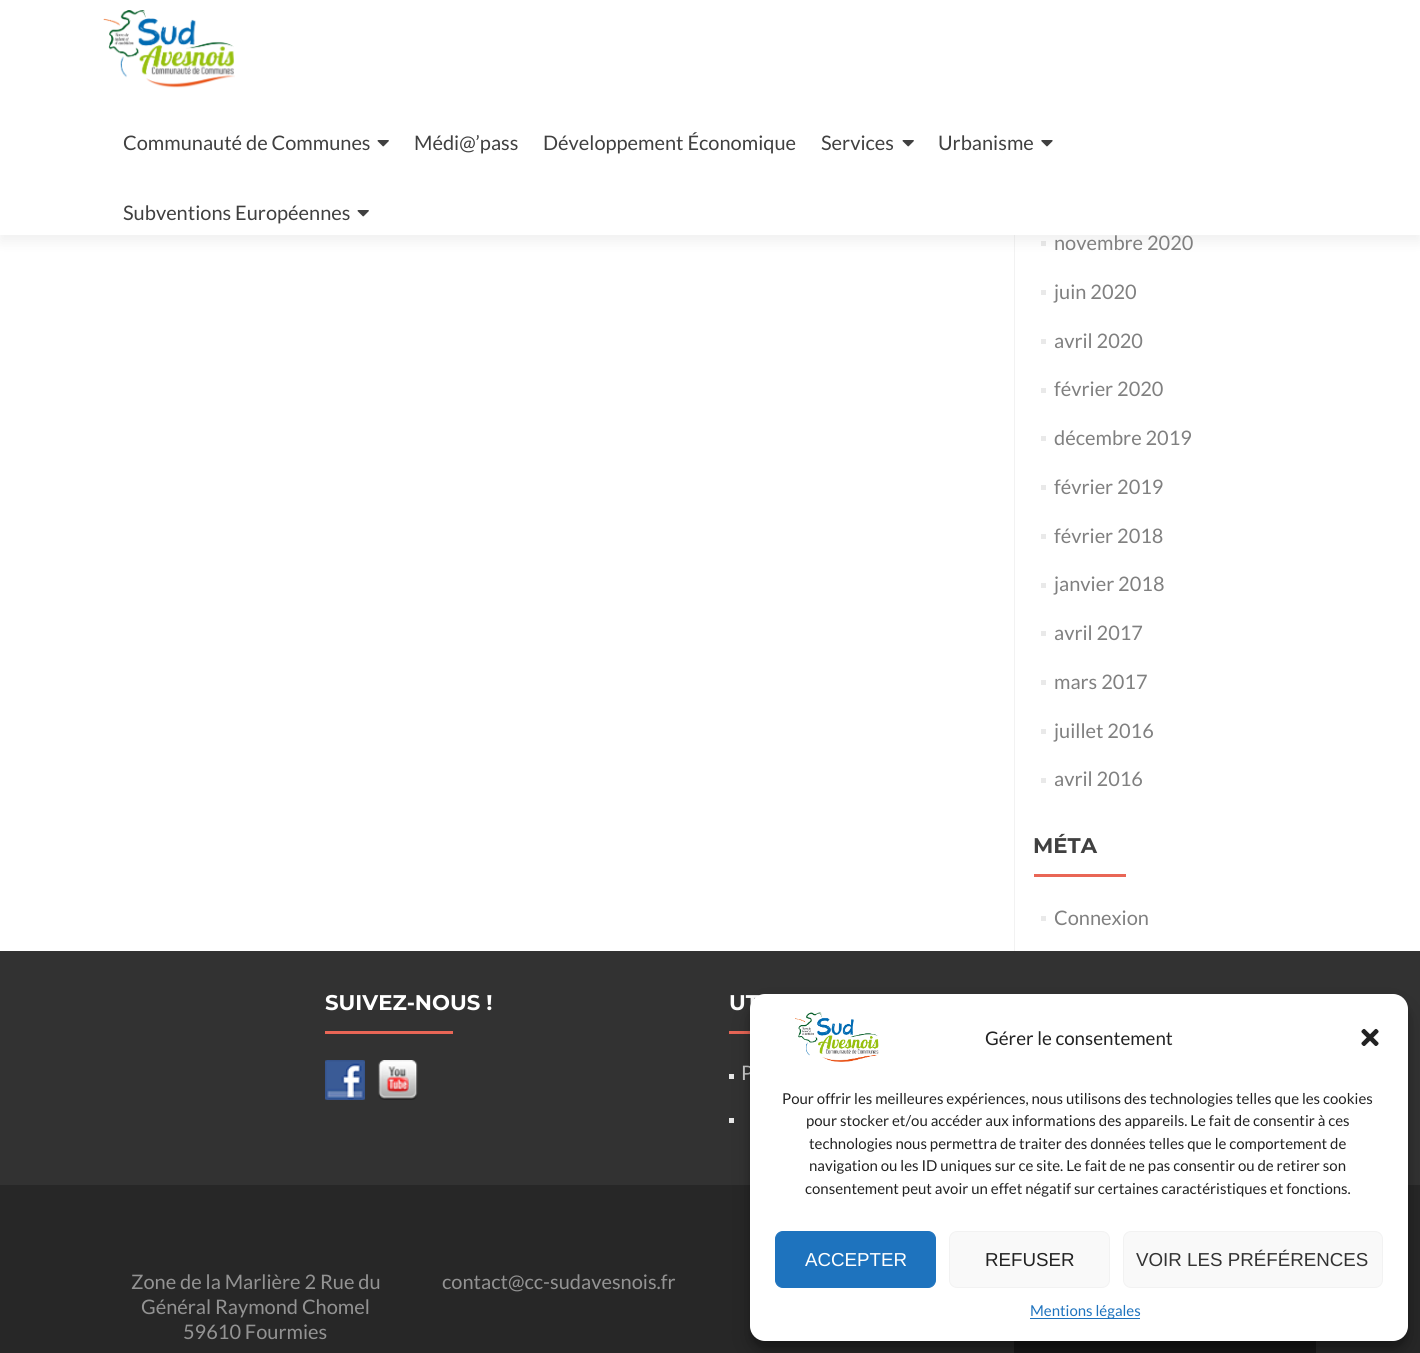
import math
import cairo

surface = cairo.ImageSurface(cairo.Format.RGB24, 1420, 1353)
ctx = cairo.Context(surface)
options = cairo.FontOptions()
options.set_hint_metrics(cairo.HintMetrics.OFF)
options.set_hint_style(cairo.HintStyle.NONE)
ctx.set_font_options(options)
ctx.set_miter_limit(4)


def ink(r, g, b):
    ctx.set_source_rgb(r / 255, g / 255, b / 255)


def write(x, y, s, family, size, color, bold=False, italic=False):
    ctx.select_font_face(family, cairo.FontSlant.ITALIC if italic else cairo.FontSlant.NORMAL, cairo.FontWeight.BOLD if bold else cairo.FontWeight.NORMAL)
    ctx.set_font_size(size)
    ink(*color)
    ctx.move_to(x, y)
    ctx.show_text(s)


def block(x, y, w, h, *color):
    ink(*color)
    ctx.rectangle(x, y, w, h)
    ctx.fill()


def round_path(x, y, w, h, r):
    ctx.new_sub_path()
    for i, (u, v) in enumerate([(x + w - r, y + h - r), (x + r, y + h - r), (x + r, y + r), (x + w - r, y + r)]):
        ctx.arc(u, v, r, i * math.pi / 2, (i + 1) * math.pi / 2)
    ctx.close_path()


def blur_box(x, y, w, h, r, blur, alpha):
    ctx.push_group_with_content(cairo.Content.ALPHA)
    ctx.set_operator(cairo.Operator.SOURCE)
    for i in range(15, -16, -2):
        e = blur * i / 6
        if min(w, h) + 2 * e > 0:
            ctx.set_source_rgba(0, 0, 0, alpha * math.erfc((i - 1) / 8.5) / 2)
            round_path(x - e, y - e, w + 2 * e, h + 2 * e, max(0, min(r + e + blur * .6, min(w, h) / 2 + e)))
            ctx.fill()
    ctx.mask(ctx.pop_group())


def paste(path, x, y, w, h):
    ctx.save()
    ctx.set_source_surface(cairo.ImageSurface.create_from_png(path), x, y)
    ctx.rectangle(x, y, w, h)
    ctx.fill()
    ctx.restore()


s1 = dict(family="Lato", size=20, color=(64, 64, 64))
s2 = dict(family="Lato", size=20, color=(128, 128, 128))
s3 = dict(family="Montserrat", size=21.25, color=(64, 64, 64), bold=True)
s4 = dict(family="Montserrat", size=21.25, color=(255, 255, 255), bold=True)
s5 = dict(family="Lato", size=20, color=(204, 204, 204))
s6 = dict(family="Lato", size=20, color=(147, 147, 147))
s7 = dict(family="Lato", size=18.75, color=(34, 34, 34))
s8 = dict(family="Lato", size=15, color=(34, 34, 34))
s9 = dict(family="Liberation Sans", size=18.75, color=(255, 255, 255))
s10 = dict(family="Liberation Sans", size=18.75, color=(34, 34, 34))
s11 = dict(family="Liberation Sans", size=18.75, color=(51, 51, 51))
s12 = dict(family="Lato", size=15, color=(30, 115, 190))

ink(255, 255, 255)
ctx.paint()
block(1014, 235, 1, 716, 242, 242, 242)
block(1041, 241, 5, 5, 233, 233, 233)
ink(50, 50, 50)
blur_box(0, 6, 1420, 235, 0, 7, 0.08)
block(0, 0, 1420, 235, 255, 255, 255)
paste("pic1.png", 103, 10, 132, 78)
write(123, 150, "Communauté de Communes", **s1)
paste("pic2.png", 377, 140, 12, 7)
write(414, 150, "Médi@’pass", **s1)
write(543, 150, "Développement Économique", **s1)
write(821, 150, "Services", **s1)
paste("pic2.png", 902, 140, 12, 7)
write(938, 150, "Urbanisme", **s1)
paste("pic3.png", 1041, 140, 12, 7)
write(123, 220, "Subventions Européennes", **s1)
paste("pic2.png", 357, 210, 12, 7)
write(1054, 250, "novembre 2020", **s2)
block(1041, 290, 5, 5, 233, 233, 233)
write(1054, 299, "juin 2020", **s2)
block(1041, 339, 5, 5, 233, 233, 233)
write(1054, 348, "avril 2020", **s2)
block(1041, 388, 5, 5, 233, 233, 233)
write(1054, 396, "février 2020", **s2)
block(1041, 436, 5, 5, 233, 233, 233)
write(1054, 445, "décembre 2019", **s2)
block(1041, 485, 5, 5, 233, 233, 233)
write(1054, 494, "février 2019", **s2)
block(1041, 534, 5, 5, 233, 233, 233)
write(1054, 543, "février 2018", **s2)
block(1041, 583, 5, 5, 233, 233, 233)
write(1054, 591, "janvier 2018", **s2)
block(1041, 631, 5, 5, 233, 233, 233)
write(1054, 640, "avril 2017", **s2)
block(1041, 680, 5, 5, 233, 233, 233)
write(1054, 689, "mars 2017", **s2)
block(1041, 729, 5, 5, 233, 233, 233)
write(1054, 738, "juillet 2016", **s2)
block(1041, 778, 5, 5, 233, 233, 233)
write(1054, 786, "avril 2016", **s2)
write(1033, 853, "MÉTA", **s3)
block(1034, 874, 92, 3, 233, 102, 86)
block(1041, 916, 5, 5, 233, 233, 233)
write(1054, 925, "Connexion", **s2)
block(0, 1185, 1420, 168, 39, 39, 39)
block(0, 951, 1420, 234, 50, 50, 50)
write(325, 1010, "SUIVEZ-NOUS !", **s4)
block(325, 1031, 128, 3, 233, 102, 86)
paste("pic4.png", 325, 1060, 40, 40)
paste("pic5.png", 378, 1060, 40, 40)
write(729, 1010, "UT", **s4)
block(729, 1031, 21, 3, 233, 102, 86)
block(729, 1074, 5, 5, 233, 233, 233)
write(741, 1080, "P", **s5)
block(729, 1118, 5, 5, 233, 233, 233)
write(131, 1289, "Zone de la Marlière 2 Rue du", **s6)
write(141, 1314, "Général Raymond Chomel", **s6)
write(183, 1339, "59610 Fourmies", **s6)
write(442, 1289, "contact@cc-sudavesnois.fr", **s6)
block(1014, 1341, 302, 12, 23, 23, 23)
ink(0, 0, 0)
blur_box(750, 1001, 658, 348, 15, 4, 0.23)
blur_box(750, 1006, 658, 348, 15, 12.5, 0.19)
ink(255, 255, 255)
round_path(750, 994, 658, 347, 15)
ctx.fill()
paste("pic6.png", 795, 1012, 84, 50)
write(985, 1045, "Gérer le consentement", **s7)
paste("pic7.png", 1361, 1028, 18, 18)
write(782, 1104, "Pour offrir les meilleures expériences, nous utilisons des technologies telles que les cookies", **s8)
write(806, 1126, "pour stocker et/ou accéder aux informations des appareils. Le fait de consentir à ces", **s8)
write(809, 1149, "technologies nous permettra de traiter des données telles que le comportement de", **s8)
write(809, 1171, "navigation ou les ID uniques sur ce site. Le fait de ne pas consentir ou de retirer son", **s8)
write(805, 1194, "consentement peut avoir un effet négatif sur certaines caractéristiques et fonctions.", **s8)
ink(30, 115, 190)
round_path(775.5, 1231.5, 160, 56, 7.5)
ctx.fill_preserve()
ctx.set_line_width(1)
ctx.stroke()
write(805, 1266, "ACCEPTER", **s9)
ink(249, 249, 249)
round_path(949.5, 1231.5, 160, 56, 7.5)
ctx.fill_preserve()
ink(242, 242, 242)
ctx.stroke()
write(985, 1266, "REFUSER", **s10)
ink(249, 249, 249)
round_path(1123.5, 1231.5, 259, 56, 7.5)
ctx.fill_preserve()
ink(242, 242, 242)
ctx.stroke()
write(1136, 1266, "VOIR LES PRÉFÉRENCES", **s11)
block(1030, 1318, 110, 1, 30, 115, 190)
write(1030, 1316, "Mentions légales", **s12)
surface.write_to_png("screenshot.png")
